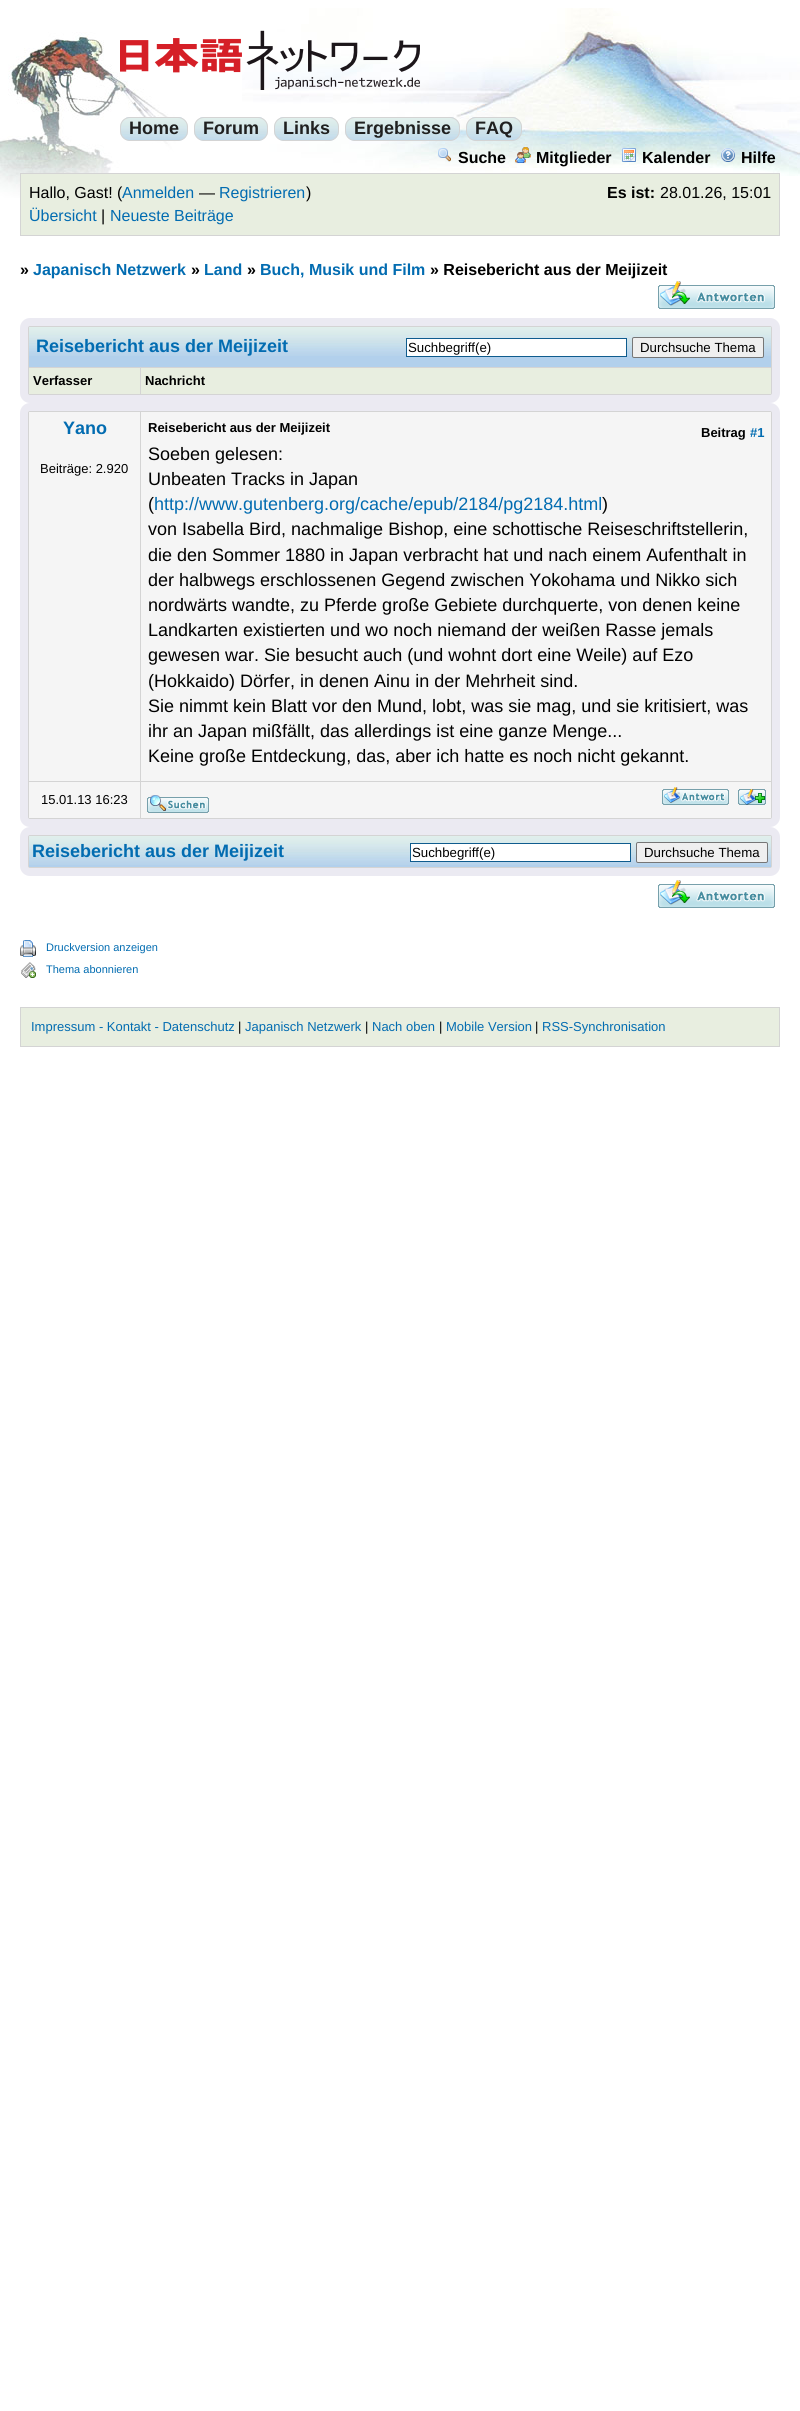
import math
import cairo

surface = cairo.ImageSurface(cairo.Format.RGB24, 800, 2411)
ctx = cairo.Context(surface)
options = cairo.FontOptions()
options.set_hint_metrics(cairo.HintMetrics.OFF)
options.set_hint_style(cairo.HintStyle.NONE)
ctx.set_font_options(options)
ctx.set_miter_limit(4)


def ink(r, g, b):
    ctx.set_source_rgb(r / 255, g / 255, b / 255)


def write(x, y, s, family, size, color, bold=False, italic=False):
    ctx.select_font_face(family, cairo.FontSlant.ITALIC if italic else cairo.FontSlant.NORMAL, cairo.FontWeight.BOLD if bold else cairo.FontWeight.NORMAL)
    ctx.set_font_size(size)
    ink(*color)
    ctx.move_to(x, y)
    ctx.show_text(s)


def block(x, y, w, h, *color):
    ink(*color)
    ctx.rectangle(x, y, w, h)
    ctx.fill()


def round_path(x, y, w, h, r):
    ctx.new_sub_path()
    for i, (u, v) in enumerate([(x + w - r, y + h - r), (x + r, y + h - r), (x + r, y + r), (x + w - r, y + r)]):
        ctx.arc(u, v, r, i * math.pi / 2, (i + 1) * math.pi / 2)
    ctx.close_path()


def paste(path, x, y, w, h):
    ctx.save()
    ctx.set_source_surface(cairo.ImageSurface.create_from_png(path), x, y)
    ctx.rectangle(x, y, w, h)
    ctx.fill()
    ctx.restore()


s1 = dict(family="Liberation Sans", size=18, color=(32, 32, 32), bold=True)
s2 = dict(family="Liberation Sans", size=16, color=(0, 0, 0), bold=True)
s3 = dict(family="Liberation Sans", size=16, color=(0, 0, 0))
s4 = dict(family="Liberation Sans", size=16, color=(2, 108, 177))
s5 = dict(family="Liberation Sans", size=16, color=(2, 108, 177), bold=True)
s6 = dict(family="Liberation Sans", size=18, color=(2, 108, 177), bold=True)
s7 = dict(family="Liberation Sans", size=13.25, color=(0, 0, 0))
s8 = dict(family="Liberation Sans", size=13, color=(0, 0, 0), bold=True)
s9 = dict(family="Liberation Sans", size=13, color=(0, 0, 0))
s10 = dict(family="Liberation Sans", size=13, color=(2, 108, 177), bold=True)
s11 = dict(family="Liberation Sans", size=18, color=(0, 0, 0))
s12 = dict(family="Liberation Sans", size=18, color=(2, 108, 177))
s13 = dict(family="Liberation Sans", size=11, color=(2, 108, 177))
s14 = dict(family="Liberation Sans", size=13, color=(2, 108, 177))

ink(255, 255, 255)
ctx.paint()
paste("pic1.png", 0, 32, 176, 166)
paste("pic2.png", 242, 8, 558, 168)
paste("pic3.png", 120, 30, 300, 60)
paste("pic4.png", 120, 117, 68, 24)
round_path(120.5, 117.5, 67, 23, 9.5)
ink(212, 212, 212)
ctx.set_line_width(1)
ctx.stroke()
write(129, 134, "Home", **s1)
paste("pic5.png", 194, 117, 74, 24)
round_path(194.5, 117.5, 73, 23, 9.5)
ink(212, 212, 212)
ctx.stroke()
write(203, 134, "Forum", **s1)
paste("pic6.png", 274, 117, 65, 24)
round_path(274.5, 117.5, 64, 23, 9.5)
ink(212, 212, 212)
ctx.stroke()
write(283, 134, "Links", **s1)
paste("pic7.png", 345, 117, 115, 24)
round_path(345.5, 117.5, 114, 23, 9.5)
ink(212, 212, 212)
ctx.stroke()
write(354, 134, "Ergebnisse", **s1)
paste("pic8.png", 466, 117, 56, 24)
round_path(466.5, 117.5, 55, 23, 9.5)
ink(212, 212, 212)
ctx.stroke()
write(475, 134, "FAQ", **s1)
paste("pic9.png", 438, 148, 13, 14)
write(458, 163, "Suche", **s2)
paste("pic10.png", 515, 147, 16, 16)
write(536, 163, "Mitglieder", **s2)
paste("pic11.png", 622, 148, 14, 14)
write(642, 163, "Kalender", **s2)
paste("pic12.png", 721, 148, 14, 14)
write(741, 163, "Hilfe", **s2)
ink(232, 238, 224)
ctx.rectangle(20.5, 173.5, 759, 62)
ctx.fill_preserve()
ink(212, 212, 212)
ctx.stroke()
write(29, 198, "Hallo, Gast! (", **s3)
write(122, 198, "Anmelden", **s4)
write(199, 198, "—", **s3)
write(219, 198, "Registrieren", **s4)
write(306, 198, ")", **s3)
write(607, 198, "Es ist:", **s2)
write(660, 198, "28.01.26, 15:01", **s3)
write(29, 221, "Übersicht", **s4)
write(101, 221, "|", **s3)
write(110, 221, "Neueste Beiträge", **s4)
write(20, 275, "»", **s2)
write(33, 275, "Japanisch Netzwerk", **s5)
write(191, 275, "»", **s2)
write(204, 275, "Land", **s5)
write(247, 275, "»", **s2)
write(260, 275, "Buch, Musik und Film", **s5)
write(430, 275, "» Reisebericht aus der Meijizeit", **s2)
paste("pic13.png", 658, 281, 117, 28)
ink(212, 212, 212)
round_path(24, 322, 752, 77, 6)
ctx.fill_preserve()
ink(235, 234, 242)
ctx.set_line_width(8)
ctx.stroke()
block(29, 356, 742, 11, 178, 208, 236)
paste("pic14.png", 29, 327, 742, 29)
write(36, 352, "Reisebericht aus der Meijizeit", **s6)
ink(255, 255, 255)
ctx.rectangle(406.5, 338.5, 220, 18)
ctx.fill_preserve()
ink(15, 92, 142)
ctx.set_line_width(1)
ctx.stroke()
write(408, 352, "Suchbegriff(e)", **s7)
ink(239, 239, 239)
round_path(632.5, 337.5, 131, 20, 1.5)
ctx.fill_preserve()
ink(118, 118, 118)
ctx.stroke()
write(640, 352, "Durchsuche Thema", **s7)
block(29, 368, 111, 26, 232, 238, 224)
write(33, 385, "Verfasser", **s8)
block(141, 368, 630, 26, 232, 238, 224)
write(145, 385, "Nachricht", **s8)
ink(212, 212, 212)
round_path(24, 407, 752, 416, 6)
ctx.fill_preserve()
ink(235, 234, 242)
ctx.set_line_width(8)
ctx.stroke()
block(29, 412, 111, 369, 245, 245, 245)
write(63, 434, "Yano", **s6)
write(40, 473, "Beiträge: 2.920", **s9)
block(141, 412, 630, 369, 245, 245, 245)
write(148, 432, "Reisebericht aus der Meijizeit", **s8)
write(701, 437, "Beitrag", **s8)
write(750, 437, "#1", **s10)
write(148, 460, "Soeben gelesen:", **s11)
write(148, 485, "Unbeaten Tracks in Japan", **s11)
write(148, 510, "(", **s11)
write(154, 510, "http://www.gutenberg.org/cache/epub/2184/pg2184.html", **s12)
write(602, 510, ")", **s11)
write(148, 535, "von Isabella Bird, nachmalige Bishop, eine schottische Reiseschriftstellerin,", **s11)
write(148, 561, "die den Sommer 1880 in Japan verbracht hat und nach einem Aufenthalt in", **s11)
write(148, 586, "der halbwegs erschlossenen Gegend zwischen Yokohama und Nikko sich", **s11)
write(148, 611, "nordwärts wandte, zu Pferde große Gebiete durchquerte, von denen keine", **s11)
write(148, 636, "Landkarten existierten und wo noch niemand der weißen Rasse jemals", **s11)
write(148, 661, "gewesen war. Sie besucht auch (und wohnt dort eine Weile) auf Ezo", **s11)
write(148, 687, "(Hokkaido) Dörfer, in denen Ainu in der Mehrheit sind.", **s11)
write(148, 712, "Sie nimmt kein Blatt vor den Mund, lobt, was sie mag, und sie kritisiert, was", **s11)
write(148, 737, "ihr an Japan mißfällt, das allerdings ist eine ganze Menge...", **s11)
write(148, 762, "Keine große Entdeckung, das, aber ich hatte es noch nicht gekannt.", **s11)
block(29, 782, 111, 36, 245, 245, 245)
write(41, 804, "15.01.13 16:23", **s9)
block(141, 782, 630, 36, 245, 245, 245)
paste("pic15.png", 147, 795, 62, 18)
paste("pic16.png", 662, 787, 67, 18)
paste("pic17.png", 738, 789, 28, 16)
ink(212, 212, 212)
round_path(24, 831, 752, 41, 6)
ctx.fill_preserve()
ink(235, 234, 242)
ctx.stroke()
block(29, 865, 742, 2, 178, 208, 236)
paste("pic14.png", 29, 836, 742, 29)
write(32, 857, "Reisebericht aus der Meijizeit", **s6)
ink(255, 255, 255)
ctx.rectangle(410.5, 843.5, 220, 18)
ctx.fill_preserve()
ink(15, 92, 142)
ctx.set_line_width(1)
ctx.stroke()
write(412, 857, "Suchbegriff(e)", **s7)
ink(239, 239, 239)
round_path(636.5, 842.5, 131, 20, 1.5)
ctx.fill_preserve()
ink(118, 118, 118)
ctx.stroke()
write(644, 857, "Durchsuche Thema", **s7)
paste("pic13.png", 658, 880, 117, 28)
paste("pic18.png", 20, 940, 16, 17)
write(46, 951, "Druckversion anzeigen", **s13)
paste("pic19.png", 21, 962, 15, 16)
write(46, 973, "Thema abonnieren", **s13)
ink(232, 238, 224)
ctx.rectangle(20.5, 1007.5, 759, 39)
ctx.fill_preserve()
ink(212, 212, 212)
ctx.stroke()
write(31, 1031, "Impressum - Kontakt - Datenschutz", **s14)
write(238, 1031, "|", **s9)
write(245, 1031, "Japanisch Netzwerk", **s14)
write(365, 1031, "|", **s9)
write(372, 1031, "Nach oben", **s14)
write(439, 1031, "|", **s9)
write(446, 1031, "Mobile Version", **s14)
write(535, 1031, "|", **s9)
write(542, 1031, "RSS-Synchronisation", **s14)
surface.write_to_png("screenshot.png")
